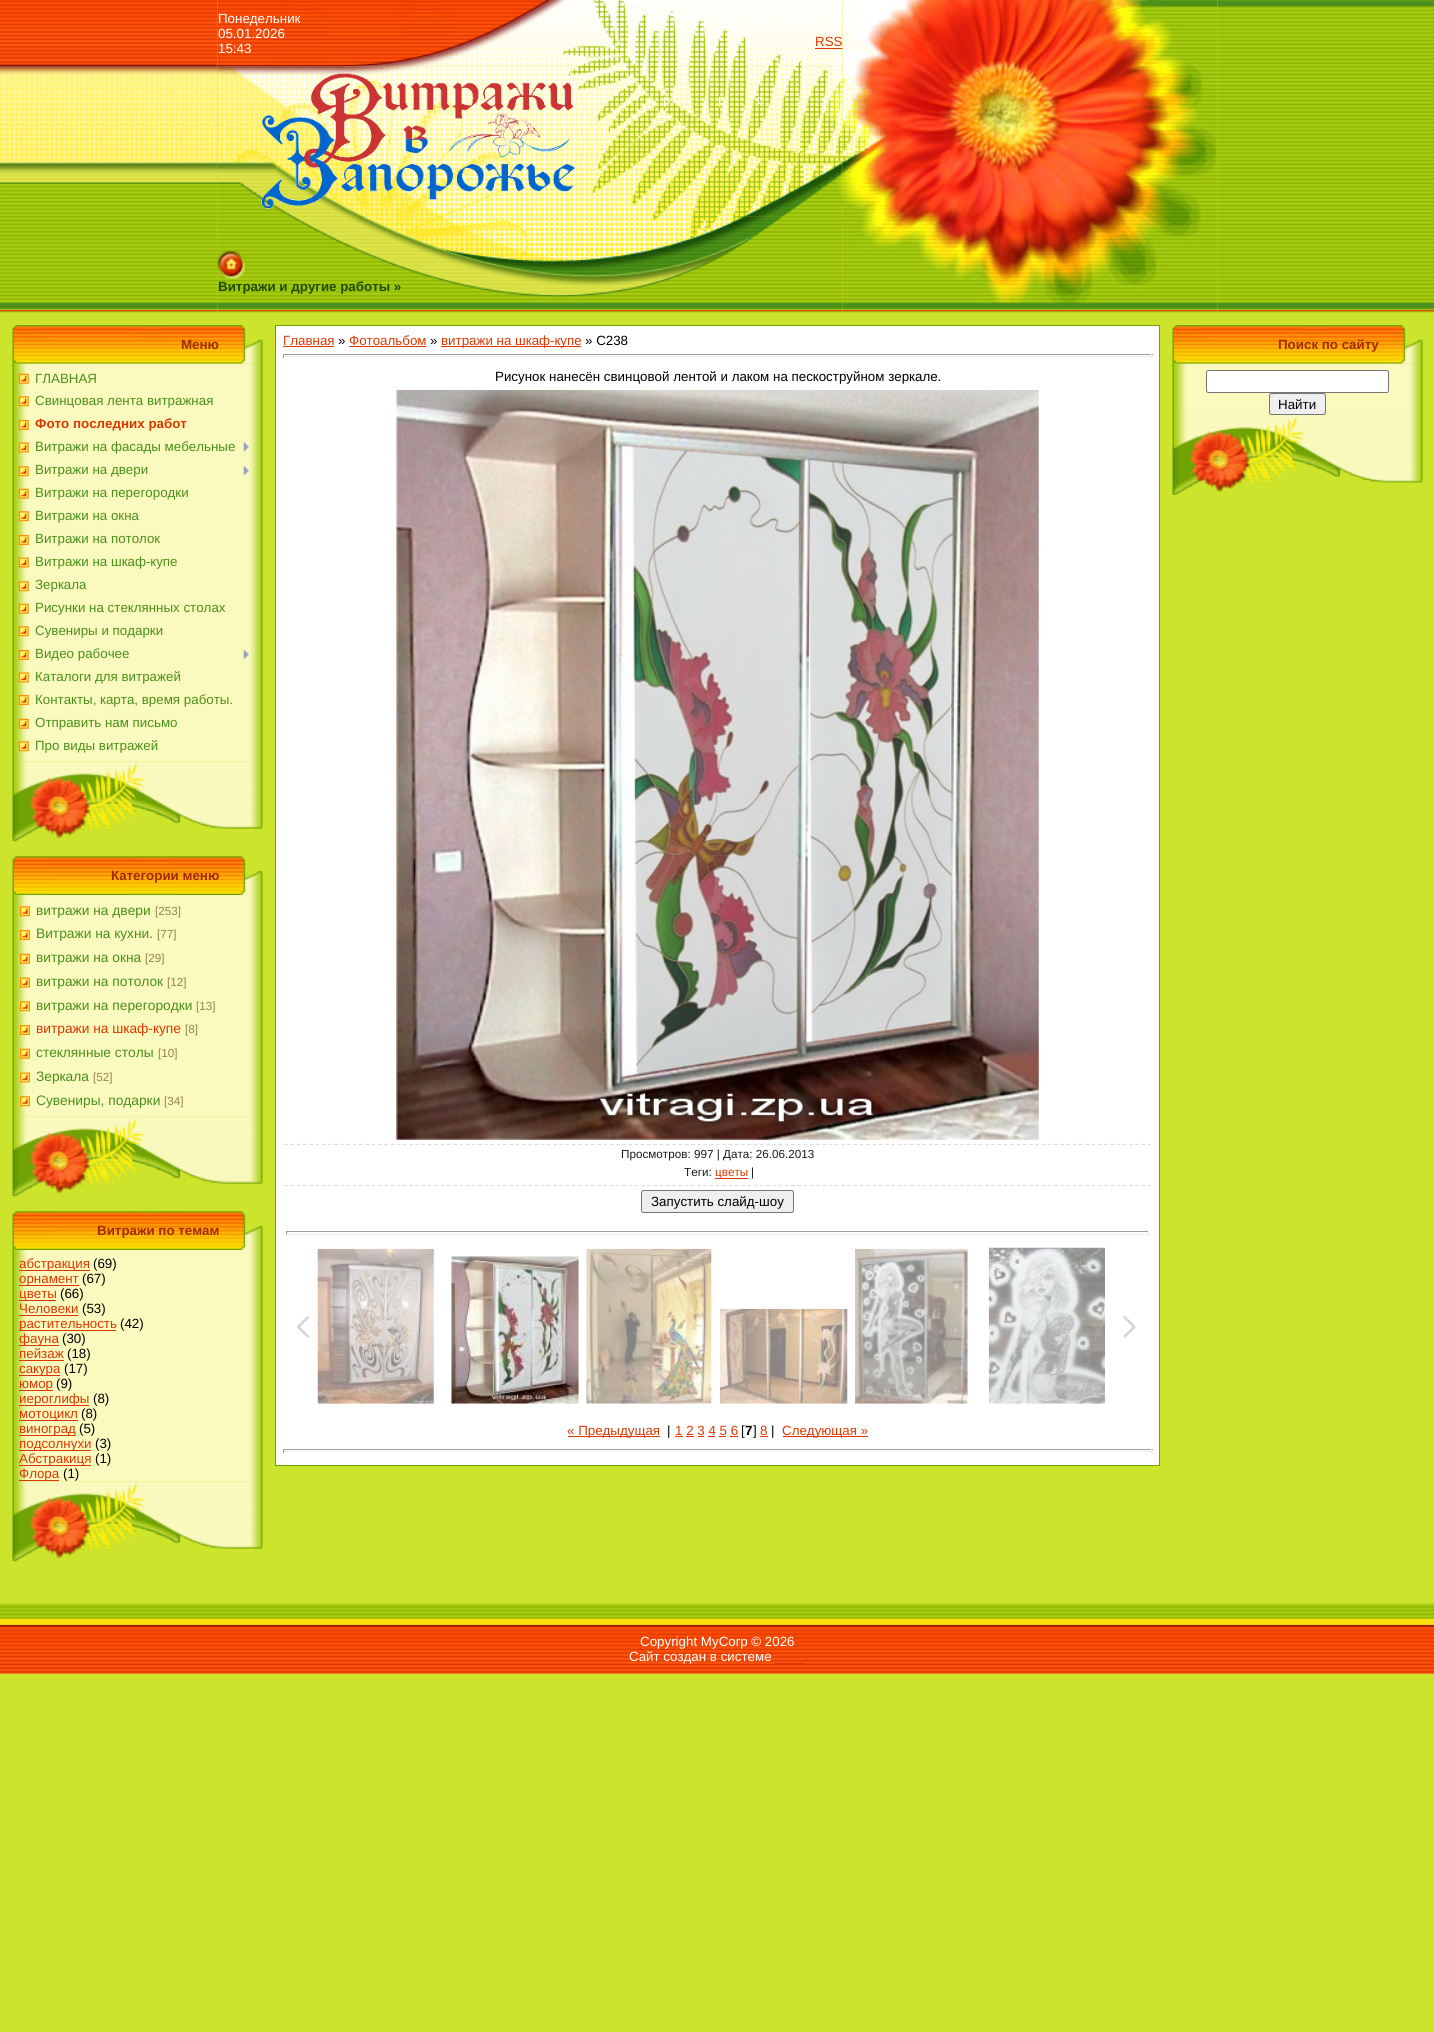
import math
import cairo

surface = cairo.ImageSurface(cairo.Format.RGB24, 1434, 2032)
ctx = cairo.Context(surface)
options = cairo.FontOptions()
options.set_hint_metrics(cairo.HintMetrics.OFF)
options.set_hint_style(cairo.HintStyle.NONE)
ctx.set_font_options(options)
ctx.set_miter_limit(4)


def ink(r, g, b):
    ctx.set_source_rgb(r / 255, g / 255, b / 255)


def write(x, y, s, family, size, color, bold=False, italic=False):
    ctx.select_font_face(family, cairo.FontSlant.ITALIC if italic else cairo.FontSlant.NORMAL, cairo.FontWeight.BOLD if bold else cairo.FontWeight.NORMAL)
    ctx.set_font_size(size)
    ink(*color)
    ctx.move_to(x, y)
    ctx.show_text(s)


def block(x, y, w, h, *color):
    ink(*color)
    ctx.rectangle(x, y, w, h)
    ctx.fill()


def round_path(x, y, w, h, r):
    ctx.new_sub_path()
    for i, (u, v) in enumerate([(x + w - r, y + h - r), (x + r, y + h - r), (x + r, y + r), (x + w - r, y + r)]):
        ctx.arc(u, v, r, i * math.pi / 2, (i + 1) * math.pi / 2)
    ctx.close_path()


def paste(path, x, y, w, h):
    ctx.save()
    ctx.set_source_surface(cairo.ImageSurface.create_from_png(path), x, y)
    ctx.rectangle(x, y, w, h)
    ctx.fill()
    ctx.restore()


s1 = dict(family="Liberation Sans", size=13.35, color=(255, 255, 255))
s2 = dict(family="Liberation Sans", size=13.35, color=(220, 55, 0))
s3 = dict(family="Liberation Sans", size=13.35, color=(255, 255, 224))
s4 = dict(family="Liberation Sans", size=13.35, color=(31, 77, 0), bold=True)
s5 = dict(family="Liberation Sans", size=13.35, color=(164, 41, 0), bold=True)
s6 = dict(family="Liberation Sans", size=13.35, color=(75, 144, 26))
s7 = dict(family="Liberation Sans", size=13.35, color=(220, 55, 0), bold=True)
s8 = dict(family="Liberation Sans", size=13.75, color=(75, 144, 26))
s9 = dict(family="Liberation Sans", size=11.7, color=(148, 133, 73))
s10 = dict(family="Liberation Sans", size=13.75, color=(220, 55, 0))
s11 = dict(family="Liberation Sans", size=13.35, color=(0, 0, 0))
s12 = dict(family="Liberation Sans", size=11.7, color=(26, 26, 26))
s13 = dict(family="Liberation Sans", size=11.7, color=(220, 55, 0))
s14 = dict(family="Liberation Sans", size=13.35, color=(0, 0, 0), bold=True)

ink(204, 228, 44)
ctx.paint()
paste("pic1.png", 217, 2, 1001, 310)
paste("pic2.png", 0, 0, 218, 313)
paste("pic3.png", 217, 0, 626, 67)
write(218, 23, "Понедельник", **s1)
write(218, 38, "05.01.2026", **s1)
write(218, 53, "15:43", **s1)
write(815, 46, "RSS", **s2)
block(815, 48, 28, 1, 220, 55, 0)
paste("pic5.png", 1217, 0, 217, 313)
paste("pic6.png", 217, 66, 626, 151)
paste("pic8.png", 217, 216, 626, 97)
paste("pic4.png", 842, 0, 376, 313)
paste("pic7.png", 261, 73, 314, 136)
write(663, 104, "р", **s3)
write(718, 104, "р", **s3)
write(757, 104, "с", **s3)
paste("pic9.png", 217, 251, 28, 28)
write(218, 291, "Витражи и другие работы »", **s4)
paste("pic10.png", 12, 325, 251, 39)
write(181, 349, "Меню", **s5)
paste("pic11.png", 12, 363, 251, 399)
paste("pic12.png", 18, 373, 11, 11)
write(35, 383, "ГЛАВНАЯ", **s6)
paste("pic13.png", 18, 396, 11, 11)
write(35, 405, "Свинцовая лента витражная", **s6)
paste("pic14.png", 18, 420, 11, 10)
write(35, 428, "Фото последних работ", **s7)
paste("pic15.png", 18, 442, 11, 11)
write(35, 451, "Витражи на фасады мебельные", **s6)
paste("pic16.png", 243, 442, 6, 10)
paste("pic13.png", 18, 466, 11, 11)
write(35, 474, "Витражи на двери", **s6)
paste("pic17.png", 243, 466, 6, 9)
paste("pic12.png", 18, 488, 11, 11)
write(35, 497, "Витражи на перегородки", **s6)
paste("pic13.png", 18, 511, 11, 11)
write(35, 520, "Витражи на окна", **s6)
paste("pic14.png", 18, 535, 11, 10)
write(35, 543, "Витражи на потолок", **s6)
paste("pic15.png", 18, 557, 11, 11)
write(35, 566, "Витражи на шкаф-купе", **s6)
paste("pic13.png", 18, 581, 11, 11)
write(35, 589, "Зеркала", **s6)
paste("pic12.png", 18, 603, 11, 11)
write(35, 612, "Рисунки на стеклянных столах", **s6)
paste("pic13.png", 18, 626, 11, 11)
write(35, 635, "Сувениры и подарки", **s6)
paste("pic14.png", 18, 650, 11, 10)
write(35, 658, "Видео рабочее", **s6)
paste("pic18.png", 243, 650, 6, 9)
paste("pic15.png", 18, 672, 11, 11)
write(35, 681, "Каталоги для витражей", **s6)
paste("pic14.png", 18, 695, 11, 10)
write(35, 704, "Контакты, карта, время работы.", **s6)
paste("pic12.png", 18, 718, 11, 11)
write(35, 727, "Отправить нам письмо", **s6)
paste("pic13.png", 18, 741, 11, 11)
write(35, 750, "Про виды витражей", **s6)
paste("pic19.png", 12, 761, 251, 81)
paste("pic20.png", 12, 856, 251, 39)
write(111, 880, "Категории меню", **s5)
paste("pic21.png", 12, 895, 251, 222)
paste("pic22.png", 20, 906, 10, 11)
write(36, 915, "витражи на двери", **s8)
write(155, 915, "[253]", **s9)
paste("pic23.png", 20, 930, 10, 10)
write(36, 938, "Витражи на кухни.", **s8)
write(157, 938, "[77]", **s9)
paste("pic24.png", 20, 953, 10, 11)
write(36, 962, "витражи на окна", **s8)
write(145, 962, "[29]", **s9)
paste("pic25.png", 20, 977, 10, 11)
write(36, 986, "витражи на потолок", **s8)
write(167, 986, "[12]", **s9)
paste("pic22.png", 20, 1001, 10, 11)
write(36, 1010, "витражи на перегородки", **s8)
write(196, 1010, "[13]", **s9)
paste("pic26.png", 20, 1025, 10, 10)
write(36, 1033, "витражи на шкаф-купе", **s10)
write(185, 1033, "[8]", **s9)
paste("pic24.png", 20, 1048, 10, 11)
write(36, 1057, "стеклянные столы", **s8)
write(158, 1057, "[10]", **s9)
paste("pic25.png", 20, 1072, 10, 11)
write(36, 1081, "Зеркала", **s8)
write(93, 1081, "[52]", **s9)
paste("pic22.png", 20, 1096, 10, 11)
write(36, 1105, "Сувениры, подарки", **s8)
write(164, 1105, "[34]", **s9)
paste("pic27.png", 12, 1116, 251, 81)
paste("pic20.png", 12, 1211, 251, 39)
write(97, 1235, "Витражи по темам", **s5)
paste("pic28.png", 12, 1250, 251, 232)
block(19, 1270, 71, 1, 220, 55, 0)
write(19, 1268, "абстракция", **s2)
write(93, 1268, "(69)", **s11)
block(19, 1285, 60, 1, 220, 55, 0)
write(19, 1283, "орнамент", **s2)
write(82, 1283, "(67)", **s11)
block(19, 1300, 37, 1, 220, 55, 0)
write(19, 1298, "цветы", **s2)
write(60, 1298, "(66)", **s11)
write(19, 1313, "Человеки", **s2)
block(19, 1315, 59, 1, 220, 55, 0)
write(82, 1313, "(53)", **s11)
block(19, 1330, 97, 1, 220, 55, 0)
write(19, 1328, "растительность", **s2)
write(120, 1328, "(42)", **s11)
block(19, 1345, 40, 1, 220, 55, 0)
write(19, 1343, "фауна", **s2)
write(62, 1343, "(30)", **s11)
write(19, 1358, "пейзаж", **s2)
block(19, 1360, 45, 1, 220, 55, 0)
write(67, 1358, "(18)", **s11)
block(19, 1375, 41, 1, 220, 55, 0)
write(19, 1373, "сакура", **s2)
write(64, 1373, "(17)", **s11)
block(19, 1390, 34, 1, 220, 55, 0)
write(19, 1388, "юмор", **s2)
write(56, 1388, "(9)", **s11)
block(19, 1405, 70, 1, 220, 55, 0)
write(19, 1403, "иероглифы", **s2)
write(93, 1403, "(8)", **s11)
block(19, 1420, 59, 1, 220, 55, 0)
write(19, 1418, "мотоцикл", **s2)
write(81, 1418, "(8)", **s11)
block(19, 1435, 56, 1, 220, 55, 0)
write(19, 1433, "виноград", **s2)
write(79, 1433, "(5)", **s11)
block(19, 1450, 72, 1, 220, 55, 0)
write(19, 1448, "подсолнухи", **s2)
write(95, 1448, "(3)", **s11)
block(19, 1465, 72, 1, 220, 55, 0)
write(19, 1463, "Абстракиця", **s2)
write(95, 1463, "(1)", **s11)
block(19, 1480, 40, 1, 220, 55, 0)
write(19, 1478, "Флора", **s2)
write(63, 1478, "(1)", **s11)
paste("pic19.png", 12, 1481, 251, 81)
ctx.rectangle(275.5, 325.5, 884, 1140)
ink(109, 161, 4)
ctx.set_line_width(1)
ctx.stroke()
block(276, 326, 883, 1139, 255, 255, 255)
write(283, 345, "Главная", **s2)
block(283, 346, 51, 1, 220, 55, 0)
write(338, 345, "»", **s11)
write(349, 345, "Фотоальбом", **s2)
block(349, 346, 77, 1, 220, 55, 0)
write(430, 345, "»", **s11)
block(441, 346, 140, 1, 220, 55, 0)
write(441, 345, "витражи на шкаф-купе", **s2)
write(585, 345, "» C238", **s11)
block(283, 354, 870, 1, 159, 159, 159)
block(1151, 354, 1, 4, 238, 238, 238)
block(283, 356, 870, 1, 238, 238, 238)
block(283, 354, 1, 4, 159, 159, 159)
write(495, 381, "Рисунок нанесён свинцовой лентой и лаком на пескоструйном зеркале.", **s11)
paste("pic29.png", 396, 390, 643, 750)
ctx.new_path()
ctx.move_to(284, 1144.5)
ctx.line_to(1151, 1144.5)
ink(221, 221, 221)
ctx.set_line_width(1.2)
ctx.set_dash([3.75, 2.51])
ctx.stroke()
ctx.new_path()
ctx.move_to(284, 1185.5)
ctx.line_to(1151, 1185.5)
ctx.stroke()
write(621, 1158, "Просмотров: 997 | Дата: 26.06.2013", **s12)
write(684, 1176, "Теги:", **s12)
block(715, 1178, 33, 1, 220, 55, 0)
write(715, 1176, "цветы", **s13)
write(751, 1176, "|", **s12)
ink(239, 239, 239)
round_path(641.5, 1190.5, 152, 22, 2)
ctx.fill_preserve()
ink(118, 118, 118)
ctx.set_line_width(1)
ctx.set_dash([])
ctx.stroke()
write(651, 1206, "Запустить слайд-шоу", **s11)
block(286, 1231, 863, 1, 159, 159, 159)
block(1148, 1231, 1, 4, 238, 238, 238)
block(286, 1234, 863, 1, 238, 238, 238)
block(286, 1231, 1, 4, 159, 159, 159)
paste("pic30.png", 296, 1316, 14, 22)
paste("pic31.png", 317, 1248, 117, 156)
paste("pic32.png", 451, 1256, 128, 148)
paste("pic33.png", 586, 1248, 126, 156)
paste("pic34.png", 720, 1308, 128, 96)
paste("pic35.png", 855, 1248, 113, 156)
paste("pic36.png", 988, 1247, 117, 157)
paste("pic37.png", 1122, 1316, 14, 22)
block(568, 1436, 92, 1, 220, 55, 0)
write(567, 1435, "« Предыдущая", **s2)
write(667, 1435, "|", **s11)
write(675, 1435, "1 2 3 4 5 6", **s2)
block(675, 1436, 8, 1, 220, 55, 0)
write(741, 1435, "[", **s11)
write(745, 1435, "7", **s14)
write(753, 1435, "]", **s11)
write(760, 1435, "8", **s2)
block(760, 1436, 8, 1, 220, 55, 0)
write(771, 1435, "|", **s11)
block(783, 1436, 85, 1, 220, 55, 0)
write(782, 1435, "Следующая »", **s2)
block(686, 1436, 8, 1, 220, 55, 0)
block(698, 1436, 6, 1, 220, 55, 0)
block(708, 1436, 7, 1, 220, 55, 0)
block(719, 1436, 7, 1, 220, 55, 0)
block(730, 1436, 8, 1, 220, 55, 0)
block(283, 1449, 870, 1, 159, 159, 159)
block(1151, 1449, 1, 4, 238, 238, 238)
block(283, 1451, 870, 1, 238, 238, 238)
block(283, 1449, 1, 4, 159, 159, 159)
paste("pic38.png", 1172, 325, 251, 39)
write(1278, 349, "Поиск по сайту", **s5)
paste("pic39.png", 1172, 363, 251, 52)
ink(255, 255, 255)
round_path(1206.5, 370.5, 182, 22, 2)
ctx.fill_preserve()
ink(118, 118, 118)
ctx.stroke()
ink(239, 239, 239)
round_path(1269.5, 393.5, 56, 21, 2)
ctx.fill_preserve()
ink(118, 118, 118)
ctx.stroke()
write(1278, 409, "Найти", **s11)
paste("pic40.png", 1172, 415, 251, 80)
paste("pic41.png", 0, 1603, 1434, 71)
write(640, 1646, "Copyright MyCorp © 2026", **s1)
write(629, 1661, "Сайт создан в системе", **s1)
block(775, 1663, 31, 1, 220, 55, 0)
surface.write_to_png("screenshot.png")
